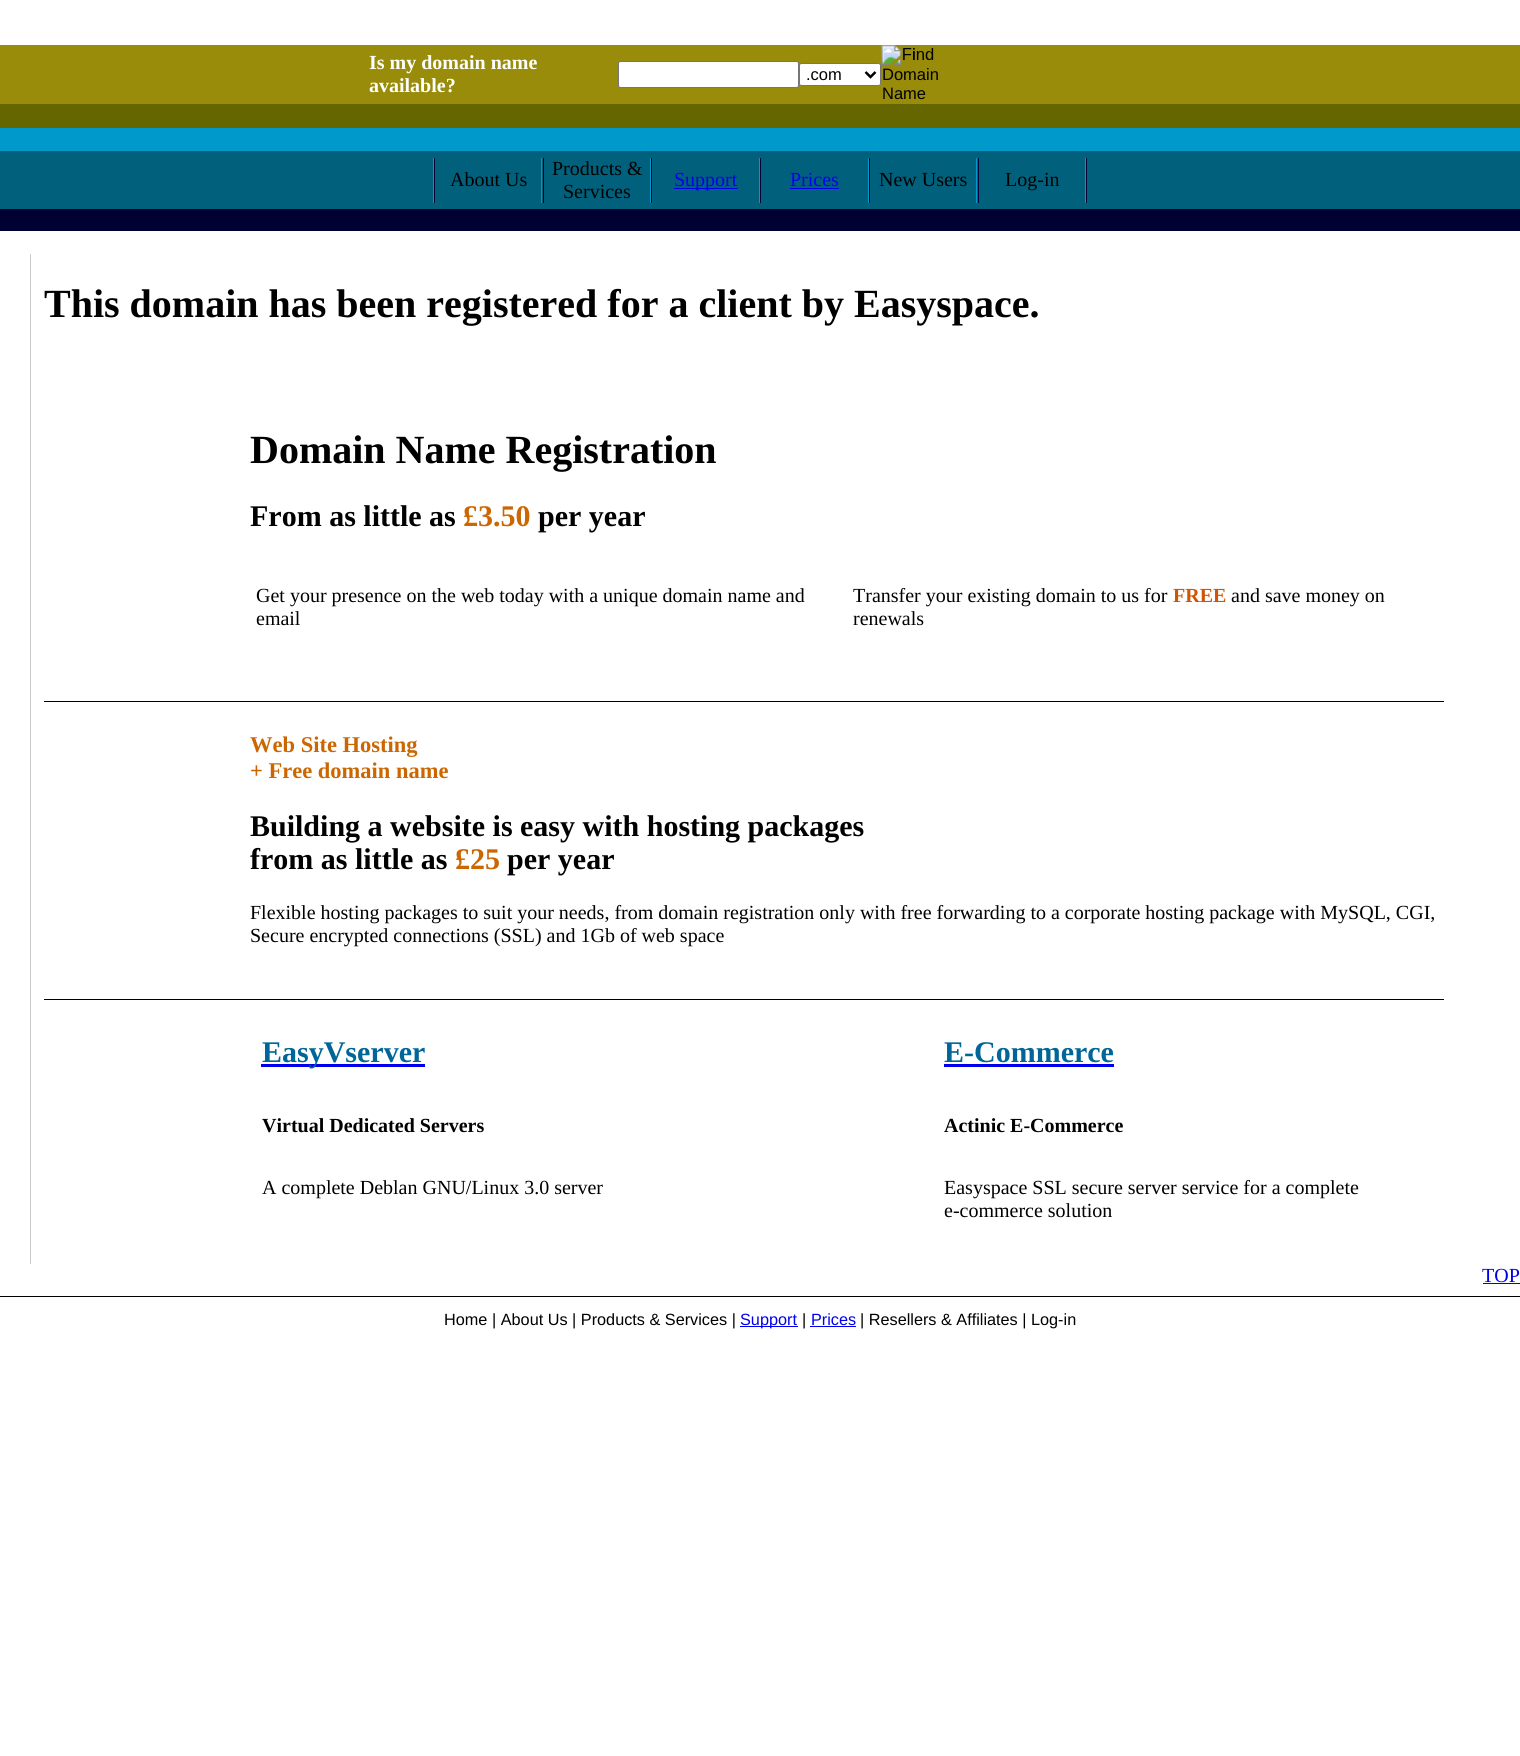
import math
import cairo

surface = cairo.ImageSurface(cairo.Format.RGB24, 1520, 1756)
ctx = cairo.Context(surface)
options = cairo.FontOptions()
options.set_hint_metrics(cairo.HintMetrics.OFF)
options.set_hint_style(cairo.HintStyle.NONE)
ctx.set_font_options(options)
ctx.set_miter_limit(4)


def ink(r, g, b):
    ctx.set_source_rgb(r / 255, g / 255, b / 255)


def write(x, y, s, family, size, color, bold=False, italic=False):
    ctx.select_font_face(family, cairo.FontSlant.ITALIC if italic else cairo.FontSlant.NORMAL, cairo.FontWeight.BOLD if bold else cairo.FontWeight.NORMAL)
    ctx.set_font_size(size)
    ink(*color)
    ctx.move_to(x, y)
    ctx.show_text(s)


def block(x, y, w, h, *color):
    ink(*color)
    ctx.rectangle(x, y, w, h)
    ctx.fill()


def round_path(x, y, w, h, r):
    ctx.new_sub_path()
    for i, (u, v) in enumerate([(x + w - r, y + h - r), (x + r, y + h - r), (x + r, y + r), (x + w - r, y + r)]):
        ctx.arc(u, v, r, i * math.pi / 2, (i + 1) * math.pi / 2)
    ctx.close_path()


def paste(path, x, y, w, h):
    ctx.save()
    ctx.set_source_surface(cairo.ImageSurface.create_from_png(path), x, y)
    ctx.rectangle(x, y, w, h)
    ctx.fill()
    ctx.restore()


s1 = dict(family="Liberation Serif", size=20, color=(255, 255, 255), bold=True)
s2 = dict(family="Liberation Sans", size=16.5, color=(0, 0, 0))
s3 = dict(family="Liberation Serif", size=20, color=(0, 0, 0))
s4 = dict(family="Liberation Serif", size=20, color=(0, 0, 238))
s5 = dict(family="Liberation Serif", size=40, color=(0, 0, 0), bold=True)
s6 = dict(family="Liberation Serif", size=30, color=(0, 0, 0), bold=True)
s7 = dict(family="Liberation Serif", size=30, color=(204, 102, 0), bold=True)
s8 = dict(family="Liberation Serif", size=20, color=(209, 84, 0), bold=True)
s9 = dict(family="Liberation Serif", size=22.5, color=(204, 102, 0), bold=True)
s10 = dict(family="Liberation Serif", size=30, color=(0, 102, 153), bold=True)
s11 = dict(family="Liberation Serif", size=20, color=(0, 0, 0), bold=True)
s12 = dict(family="Liberation Sans", size=16.25, color=(0, 0, 0))
s13 = dict(family="Liberation Sans", size=16.25, color=(0, 0, 238))

ink(255, 255, 255)
ctx.paint()
block(0, 45, 1520, 59, 153, 140, 10)
write(369, 69, "Is my domain name", **s1)
write(369, 92, "available?", **s1)
round_path(618.5, 61.5, 180, 26, 2)
ctx.fill_preserve()
ink(118, 118, 118)
ctx.set_line_width(1)
ctx.stroke()
ink(255, 255, 255)
round_path(799.5, 63.5, 81, 22, 2)
ctx.fill_preserve()
ink(118, 118, 118)
ctx.stroke()
ctx.new_path()
ctx.move_to(865.5, 72)
ctx.line_to(870.5, 77)
ctx.line_to(875.5, 72)
ink(0, 0, 0)
ctx.set_line_width(2.5)
ctx.stroke()
write(806, 80, ".com", **s2)
paste("pic1.png", 881, 45, 53, 20)
write(912, 60, "i", **s2)
write(882, 80, "Domain", **s2)
write(882, 99, "Name", **s2)
block(0, 104, 1520, 24, 102, 102, 0)
block(0, 128, 1520, 23, 0, 153, 204)
block(0, 151, 1520, 58, 1, 97, 124)
block(433, 158, 1, 45, 0, 153, 204)
block(434, 158, 1, 45, 0, 0, 51)
write(450, 186, "About Us", **s3)
block(541, 158, 1, 45, 0, 153, 204)
block(543, 158, 1, 45, 0, 0, 51)
write(552, 175, "Products &", **s3)
write(563, 198, "Services", **s3)
block(650, 158, 1, 45, 0, 153, 204)
block(651, 158, 1, 45, 0, 0, 51)
block(674, 188, 64, 1, 0, 0, 238)
write(674, 186, "Support", **s4)
block(759, 158, 1, 45, 0, 153, 204)
block(760, 158, 1, 45, 0, 0, 51)
write(790, 186, "Prices", **s4)
block(790, 188, 49, 1, 0, 0, 238)
block(868, 158, 1, 45, 0, 153, 204)
block(869, 158, 1, 45, 0, 0, 51)
write(879, 186, "New Users", **s3)
block(976, 158, 1, 45, 0, 153, 204)
block(978, 158, 1, 45, 0, 0, 51)
write(1005, 186, "Log-in", **s3)
block(1085, 158, 1, 45, 0, 153, 204)
block(1086, 158, 1, 45, 0, 0, 51)
block(0, 209, 1520, 22, 0, 0, 51)
block(30, 254, 1, 1010, 204, 204, 204)
write(44, 317, "This domain has been registered for a client by Easyspace.", **s5)
write(250, 463, "Domain Name Registration", **s5)
write(250, 526, "From as little as", **s6)
write(463, 526, "£3.50", **s7)
write(538, 526, "per year", **s6)
write(256, 602, "Get your presence on the web today with a unique domain name and", **s3)
write(256, 625, "email", **s3)
write(853, 602, "Transfer your existing domain to us for", **s3)
write(1173, 602, "FREE", **s8)
write(1231, 602, "and save money on", **s3)
write(853, 625, "renewals", **s3)
block(44, 701, 1400, 1, 0, 0, 0)
write(250, 752, "Web Site Hosting", **s9)
write(250, 778, "+ Free domain name", **s9)
write(250, 836, "Building a website is easy with hosting packages", **s6)
write(250, 869, "from as little as", **s6)
write(455, 869, "£25", **s7)
write(507, 869, "per year", **s6)
write(250, 919, "Flexible hosting packages to suit your needs, from domain registration only with free forwarding to a corporate hosting package with MySQL, CGI,", **s3)
write(250, 942, "Secure encrypted connections (SSL) and 1Gb of web space", **s3)
block(44, 999, 1400, 1, 0, 0, 0)
block(261, 1064, 164, 3, 0, 0, 238)
write(262, 1062, "EasyVserver", **s10)
write(262, 1132, "Virtual Dedicated Servers", **s11)
write(262, 1194, "A complete Deblan GNU/Linux 3.0 server", **s3)
write(944, 1062, "E-Commerce", **s10)
block(944, 1064, 170, 3, 0, 0, 238)
write(944, 1132, "Actinic E-Commerce", **s11)
write(944, 1194, "Easyspace SSL secure server service for a complete", **s3)
write(944, 1217, "e-commerce solution", **s3)
write(1482, 1282, "TOP", **s4)
block(1483, 1283, 37, 1, 0, 0, 238)
block(0, 1296, 1520, 1, 0, 0, 0)
write(444, 1325, "Home", **s12)
write(492, 1325, "| About Us | Products & Services |", **s12)
block(740, 1326, 58, 1, 0, 0, 238)
write(740, 1325, "Support", **s13)
write(802, 1325, "|", **s12)
write(811, 1325, "Prices", **s13)
block(810, 1326, 46, 1, 0, 0, 238)
write(860, 1325, "| Resellers & Affiliates | Log-in", **s12)
surface.write_to_png("screenshot.png")
